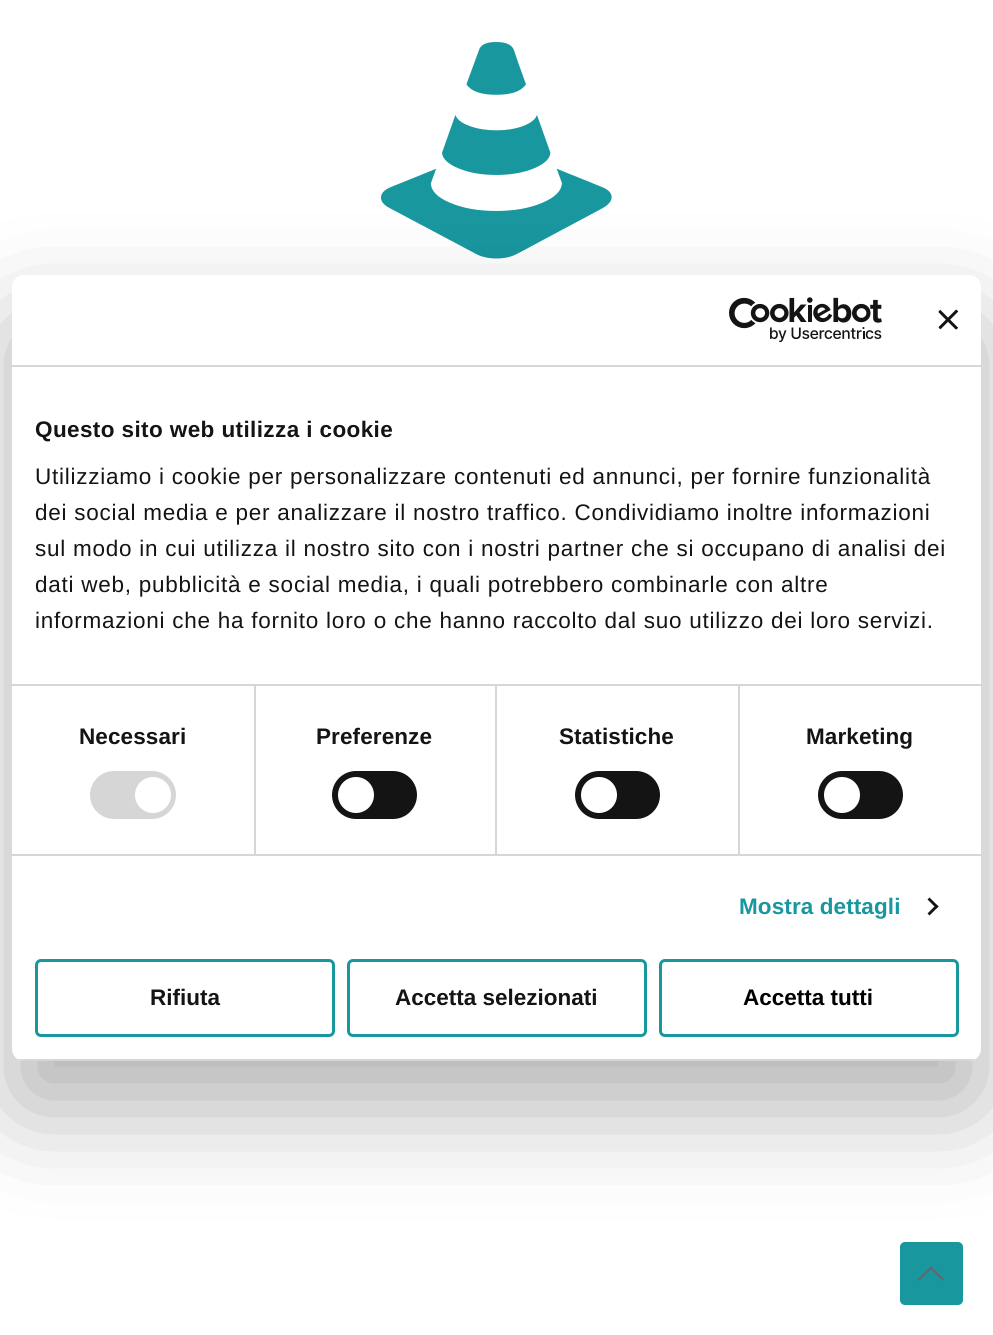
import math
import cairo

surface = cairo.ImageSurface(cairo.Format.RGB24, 993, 1335)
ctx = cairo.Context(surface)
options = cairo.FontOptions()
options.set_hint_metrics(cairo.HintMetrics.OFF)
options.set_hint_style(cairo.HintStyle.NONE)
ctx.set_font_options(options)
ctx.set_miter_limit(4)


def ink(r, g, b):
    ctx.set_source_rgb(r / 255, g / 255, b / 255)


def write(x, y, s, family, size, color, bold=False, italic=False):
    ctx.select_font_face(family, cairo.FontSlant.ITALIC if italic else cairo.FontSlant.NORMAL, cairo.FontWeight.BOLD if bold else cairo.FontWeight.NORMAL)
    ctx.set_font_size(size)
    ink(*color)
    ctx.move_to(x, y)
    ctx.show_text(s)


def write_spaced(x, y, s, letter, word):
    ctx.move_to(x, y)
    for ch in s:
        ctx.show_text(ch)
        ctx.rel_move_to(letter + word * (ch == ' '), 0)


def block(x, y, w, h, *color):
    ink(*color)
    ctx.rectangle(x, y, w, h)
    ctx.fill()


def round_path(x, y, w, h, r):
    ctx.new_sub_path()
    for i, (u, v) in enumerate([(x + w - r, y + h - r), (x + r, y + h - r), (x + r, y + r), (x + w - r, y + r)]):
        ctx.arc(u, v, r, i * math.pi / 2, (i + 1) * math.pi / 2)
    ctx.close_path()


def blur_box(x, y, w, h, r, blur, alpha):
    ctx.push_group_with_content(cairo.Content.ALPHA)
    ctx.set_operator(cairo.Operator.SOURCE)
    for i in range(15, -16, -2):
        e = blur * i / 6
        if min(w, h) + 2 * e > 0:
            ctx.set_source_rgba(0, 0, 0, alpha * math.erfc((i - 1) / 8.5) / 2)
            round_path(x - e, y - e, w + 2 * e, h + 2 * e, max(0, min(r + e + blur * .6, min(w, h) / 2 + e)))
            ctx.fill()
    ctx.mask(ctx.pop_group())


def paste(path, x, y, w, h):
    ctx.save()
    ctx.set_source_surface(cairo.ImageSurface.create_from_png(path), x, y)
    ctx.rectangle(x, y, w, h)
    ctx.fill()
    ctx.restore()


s1 = dict(family="Liberation Sans", size=22.5, color=(20, 20, 20), bold=True)
s2 = dict(family="Liberation Sans", size=22.5, color=(0, 0, 0), bold=True)

ink(255, 255, 255)
ctx.paint()
paste("pic1.png", 381, 42, 231, 217)
ink(25, 151, 159)
round_path(900, 1242, 63, 63, 5)
ctx.fill()
ink(0, 0, 0)
blur_box(12, 323, 969, 786, 12, 51, 0.3)
ink(255, 255, 255)
round_path(12, 275, 969, 786, 12)
ctx.fill()
block(12, 365, 969, 2, 214, 214, 214)
paste("pic2.png", 729, 297, 153, 45)
paste("pic3.png", 938, 309, 21, 21)
block(12, 684, 969, 2, 214, 214, 214)
ctx.select_font_face("Liberation Sans", cairo.FontSlant.NORMAL, cairo.FontWeight.BOLD)
ctx.set_font_size(22.5)
ink(20, 20, 20)
write_spaced(35, 437, "Questo sito web utilizza i cookie", 0.4, 0)
ctx.select_font_face("Liberation Sans")
write_spaced(35, 484, "Utilizziamo i cookie per personalizzare contenuti ed annunci, per fornire funzionalità", 0.75, 0)
write_spaced(35, 520, "dei social media e per analizzare il nostro traffico. Condividiamo inoltre informazioni", 0.75, 0)
write_spaced(35, 556, "sul modo in cui utilizza il nostro sito con i nostri partner che si occupano di analisi dei", 0.75, 0)
write_spaced(35, 592, "dati web, pubblicità e social media, i quali potrebbero combinarle con altre", 0.75, 0)
write_spaced(35, 628, "informazioni che ha fornito loro o che hanno raccolto dal suo utilizzo dei loro servizi.", 0.75, 0)
block(12, 854, 969, 2, 214, 214, 214)
block(254, 686, 2, 168, 214, 214, 214)
ctx.select_font_face("Liberation Sans", cairo.FontSlant.NORMAL, cairo.FontWeight.BOLD)
ink(20, 20, 20)
write_spaced(79, 744, "Necessari", 0.1, 0)
ink(214, 214, 214)
round_path(90, 771, 86, 48, 24)
ctx.fill()
ink(255, 255, 255)
ctx.arc(153, 795, 18, 0, 2 * math.pi)
ctx.fill()
block(495, 686, 2, 168, 214, 214, 214)
ink(20, 20, 20)
write_spaced(316, 744, "Preferenze", 0.1, 0)
round_path(332, 771, 85, 48, 24)
ctx.fill()
ink(255, 255, 255)
ctx.arc(356, 795, 18, 0, 2 * math.pi)
ctx.fill()
block(738, 686, 2, 168, 214, 214, 214)
ink(20, 20, 20)
write_spaced(559, 744, "Statistiche", 0.1, 0)
round_path(575, 771, 85, 48, 24)
ctx.fill()
ink(255, 255, 255)
ctx.arc(599, 795, 18, 0, 2 * math.pi)
ctx.fill()
ink(20, 20, 20)
write_spaced(806, 744, "Marketing", 0.1, 0)
round_path(818, 771, 85, 48, 24)
ctx.fill()
ink(255, 255, 255)
ctx.arc(842, 795, 18, 0, 2 * math.pi)
ctx.fill()
ink(25, 151, 159)
write_spaced(739, 914, "Mostra dettagli", 0.1, 0)
ink(20, 20, 20)
ctx.new_path()
ctx.move_to(929.5, 897.5)
ctx.line_to(938.5, 906.5)
ctx.line_to(936.5, 908.5)
ctx.line_to(927.5, 899.5)
ctx.close_path()
ctx.fill()
ctx.new_path()
ctx.move_to(936.5, 904.5)
ctx.line_to(938.5, 906.5)
ctx.line_to(929.5, 915.5)
ctx.line_to(927.5, 913.5)
ctx.close_path()
ctx.fill()
ctx.save()
round_path(12, 275, 969, 786, 12)
ctx.clip()
block(12, 1059, 969, 2, 214, 214, 214)
ctx.restore()
round_path(36.5, 960.5, 297, 75, 4.5)
ink(25, 151, 159)
ctx.set_line_width(3)
ctx.stroke()
write(150, 1005, "Rifiuta", **s1)
round_path(348.5, 960.5, 297, 75, 4.5)
ink(25, 151, 159)
ctx.stroke()
write(395, 1005, "Accetta selezionati", **s1)
round_path(660.5, 960.5, 297, 75, 4.5)
ink(25, 151, 159)
ctx.stroke()
write(743, 1005, "Accetta tutti", **s2)
paste("pic4.png", 918, 1266, 26, 15)
surface.write_to_png("screenshot.png")
